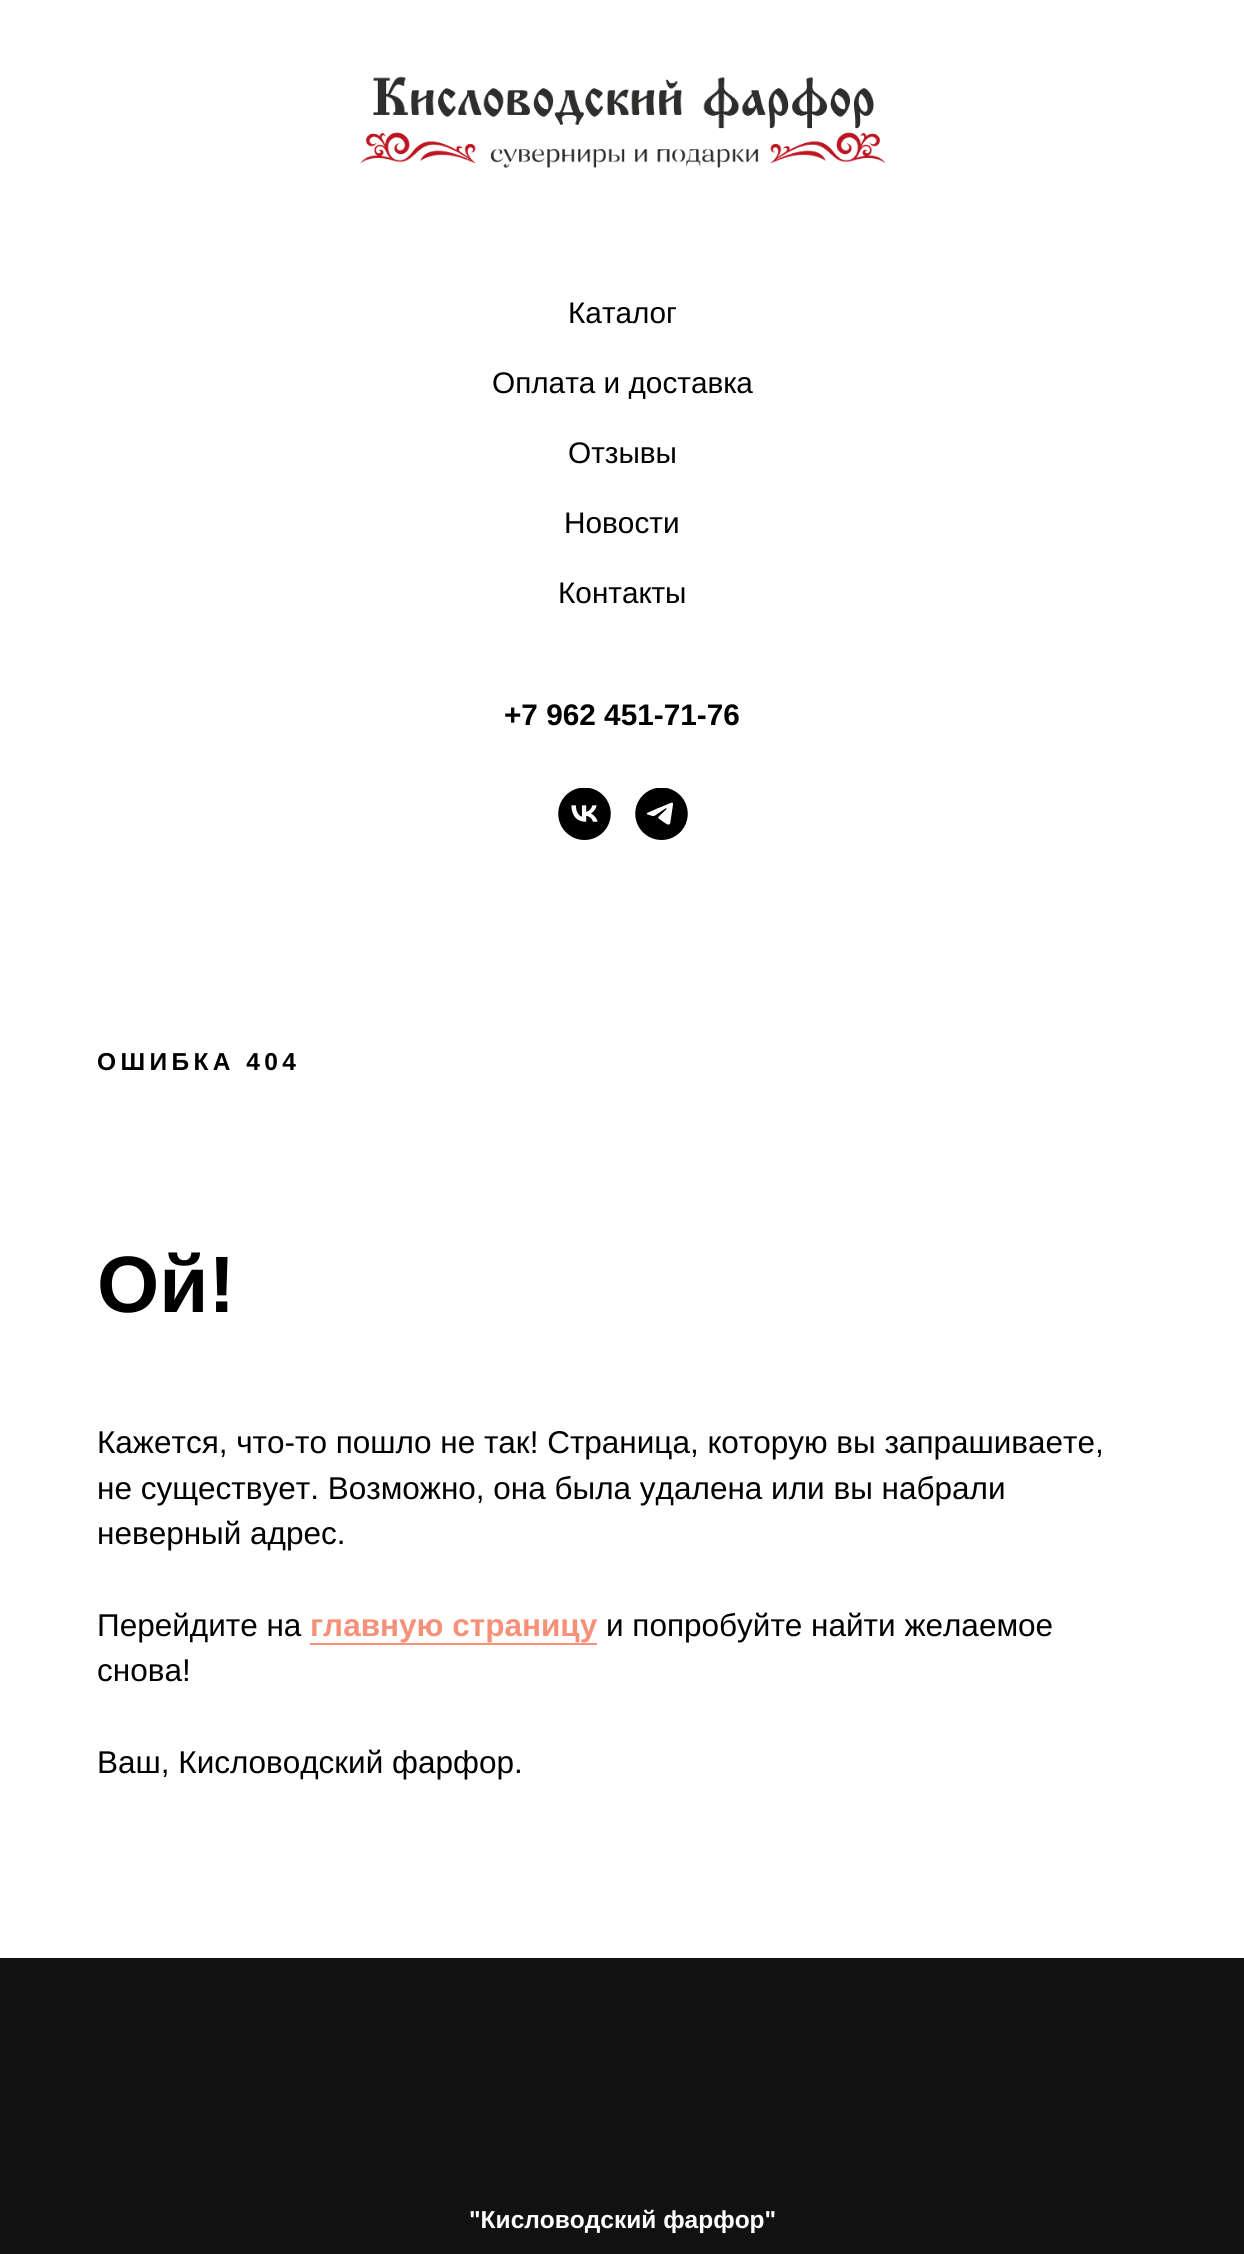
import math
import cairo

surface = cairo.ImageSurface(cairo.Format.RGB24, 1244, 2254)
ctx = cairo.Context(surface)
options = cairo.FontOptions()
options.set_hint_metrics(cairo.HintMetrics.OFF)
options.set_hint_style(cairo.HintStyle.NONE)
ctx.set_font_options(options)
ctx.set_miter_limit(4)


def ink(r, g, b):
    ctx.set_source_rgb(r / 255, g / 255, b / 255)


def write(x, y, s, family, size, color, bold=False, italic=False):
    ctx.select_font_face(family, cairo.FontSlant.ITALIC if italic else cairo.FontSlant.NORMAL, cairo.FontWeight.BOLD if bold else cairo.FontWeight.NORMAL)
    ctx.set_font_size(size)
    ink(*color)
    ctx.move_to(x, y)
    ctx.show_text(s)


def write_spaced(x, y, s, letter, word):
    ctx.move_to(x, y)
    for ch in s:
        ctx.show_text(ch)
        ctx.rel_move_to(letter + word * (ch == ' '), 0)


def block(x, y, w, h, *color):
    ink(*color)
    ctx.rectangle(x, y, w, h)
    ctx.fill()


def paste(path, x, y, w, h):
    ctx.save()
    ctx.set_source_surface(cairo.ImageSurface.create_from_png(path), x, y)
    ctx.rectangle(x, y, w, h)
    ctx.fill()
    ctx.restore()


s1 = dict(family="Liberation Sans", size=29.75, color=(0, 0, 0))
s2 = dict(family="Liberation Sans", size=29.75, color=(0, 0, 0), bold=True)
s3 = dict(family="Liberation Sans", size=80, color=(0, 0, 0), bold=True)
s4 = dict(family="Liberation Sans", size=31.5, color=(0, 0, 0))
s5 = dict(family="Liberation Sans", size=31.5, color=(247, 144, 121), bold=True)
s6 = dict(family="Liberation Sans", size=24.5, color=(255, 255, 255), bold=True)

ink(255, 255, 255)
ctx.paint()
paste("pic1.png", 360, 76, 526, 92)
write(568, 323, "Каталог", **s1)
write(492, 393, "Оплата и доставка", **s1)
write(568, 463, "Отзывы", **s1)
write(564, 533, "Новости", **s1)
write(558, 603, "Контакты", **s1)
write(504, 725, "+7 962 451-71-76", **s2)
paste("pic2.png", 558, 788, 53, 52)
paste("pic3.png", 635, 788, 53, 52)
ctx.set_font_size(24.5)
write_spaced(97, 1070, "ОШИБКА 404", 4.4, 0)
write(97, 1312, "Ой!", **s3)
write(97, 1453, "Кажется, что-то пошло не так! Страница, которую вы запрашиваете,", **s4)
write(97, 1499, "не существует. Возможно, она была удалена или вы набрали", **s4)
write(97, 1544, "неверный адрес.", **s4)
write(97, 1636, "Перейдите на", **s4)
write(310, 1636, "главную страницу", **s5)
block(310, 1643, 287, 2, 247, 144, 121)
write(606, 1636, "и попробуйте найти желаемое", **s4)
write(97, 1681, "снова!", **s4)
write(97, 1773, "Ваш, Кисловодский фарфор.", **s4)
block(0, 1958, 1244, 296, 17, 17, 17)
write(469, 2228, "\"Кисловодский фарфор\"", **s6)
surface.write_to_png("screenshot.png")
